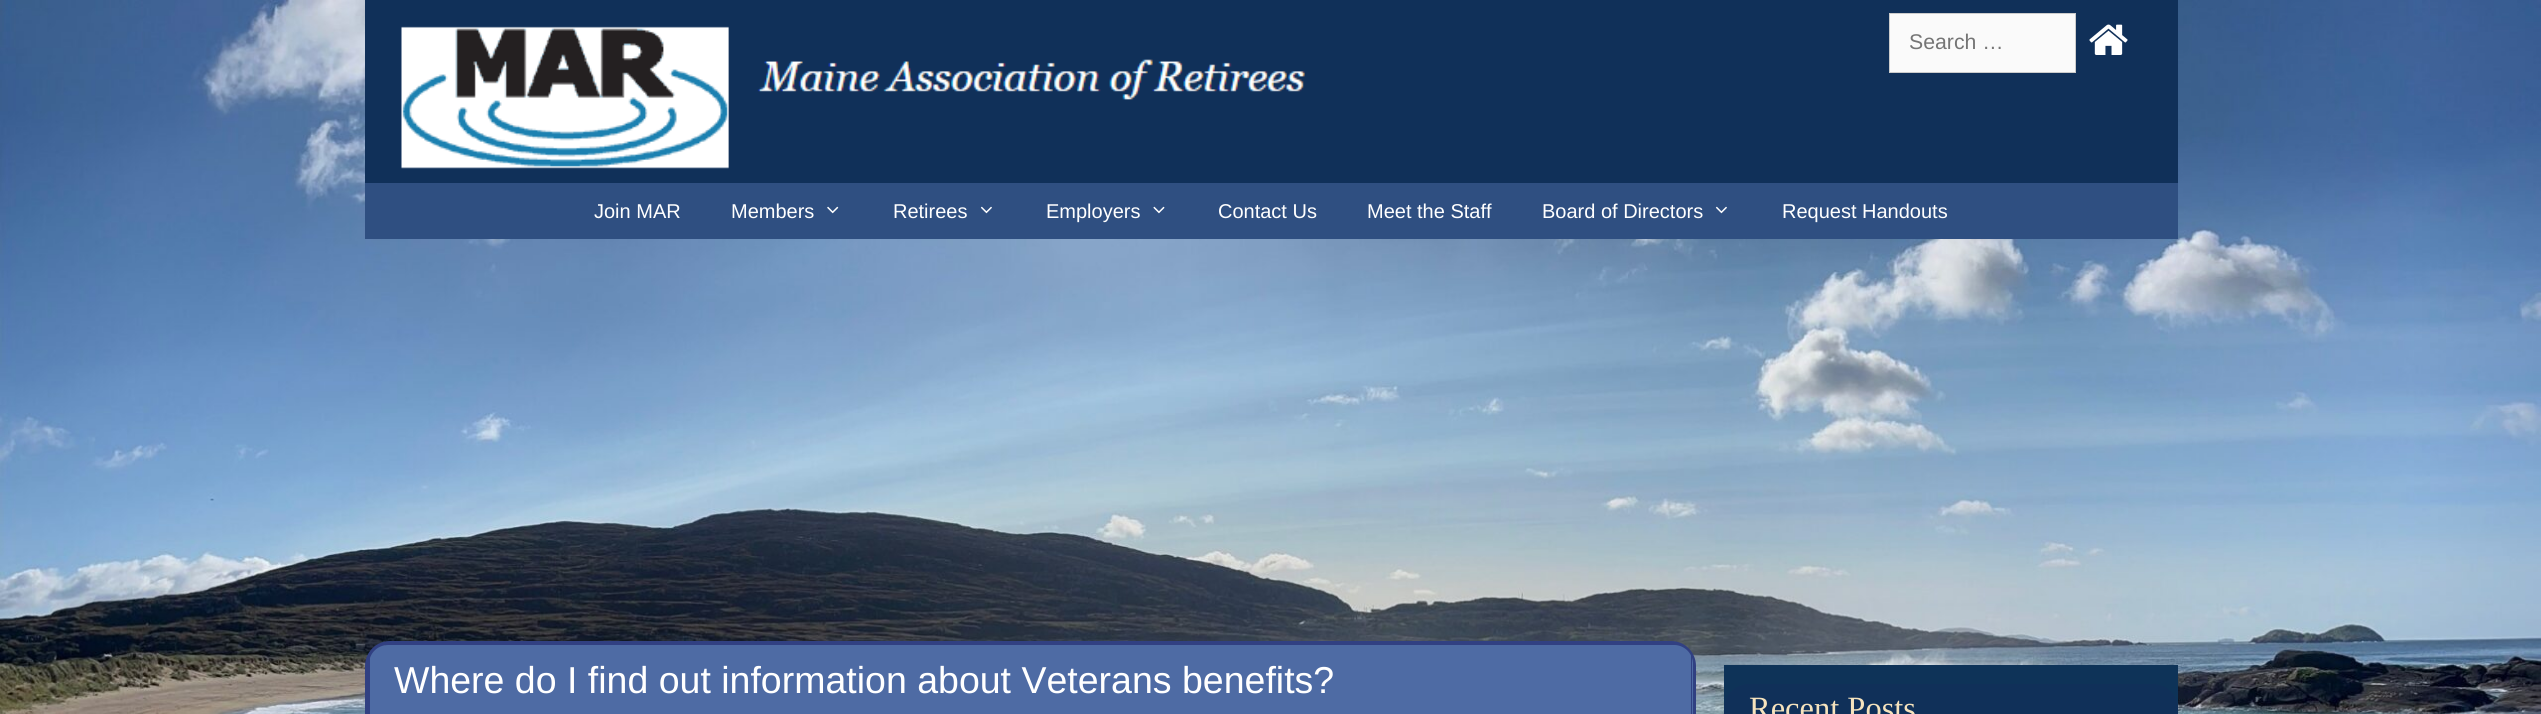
import math
import cairo

surface = cairo.ImageSurface(cairo.Format.RGB24, 2541, 714)
ctx = cairo.Context(surface)
options = cairo.FontOptions()
options.set_hint_metrics(cairo.HintMetrics.OFF)
options.set_hint_style(cairo.HintStyle.NONE)
ctx.set_font_options(options)
ctx.set_miter_limit(4)


def ink(r, g, b):
    ctx.set_source_rgb(r / 255, g / 255, b / 255)


def write(x, y, s, family, size, color, bold=False, italic=False):
    ctx.select_font_face(family, cairo.FontSlant.ITALIC if italic else cairo.FontSlant.NORMAL, cairo.FontWeight.BOLD if bold else cairo.FontWeight.NORMAL)
    ctx.set_font_size(size)
    ink(*color)
    ctx.move_to(x, y)
    ctx.show_text(s)


def block(x, y, w, h, *color):
    ink(*color)
    ctx.rectangle(x, y, w, h)
    ctx.fill()


def round_path(x, y, w, h, r):
    ctx.new_sub_path()
    for i, (u, v) in enumerate([(x + w - r, y + h - r), (x + r, y + h - r), (x + r, y + r), (x + w - r, y + r)]):
        ctx.arc(u, v, r, i * math.pi / 2, (i + 1) * math.pi / 2)
    ctx.close_path()


def paste(path, x, y, w, h):
    ctx.save()
    ctx.set_source_surface(cairo.ImageSurface.create_from_png(path), x, y)
    ctx.rectangle(x, y, w, h)
    ctx.fill()
    ctx.restore()


s1 = dict(family="Liberation Sans", size=21.25, color=(117, 117, 117))
s2 = dict(family="Liberation Sans", size=20, color=(255, 255, 255))
s3 = dict(family="Liberation Sans", size=37.5, color=(255, 255, 255))
s4 = dict(family="Liberation Serif", size=32.5, color=(246, 227, 189))

ink(255, 255, 255)
ctx.paint()
paste("pic1.png", 0, 0, 2541, 714)
block(365, 0, 1813, 183, 16, 48, 89)
paste("pic2.png", 401, 26, 904, 143)
ink(250, 250, 250)
ctx.rectangle(1889.5, 13.5, 186, 59)
ctx.fill_preserve()
ink(204, 204, 204)
ctx.set_line_width(1)
ctx.stroke()
write(1909, 49, "Search …", **s1)
paste("pic3.png", 2089, 24, 39, 31)
block(365, 183, 1813, 56, 47, 79, 129)
write(594, 218, "Join MAR", **s2)
write(731, 218, "Members", **s2)
paste("pic4.png", 827, 206, 12, 8)
write(893, 218, "Retirees", **s2)
paste("pic5.png", 980, 206, 12, 8)
write(1046, 218, "Employers", **s2)
paste("pic6.png", 1153, 206, 12, 8)
write(1218, 218, "Contact Us", **s2)
write(1367, 218, "Meet the Staff", **s2)
write(1542, 218, "Board of Directors", **s2)
paste("pic5.png", 1715, 206, 12, 8)
write(1782, 218, "Request Handouts", **s2)
round_path(367, 643, 1327, 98, 23)
ink(49, 64, 130)
ctx.set_line_width(4)
ctx.stroke()
ink(78, 107, 164)
ctx.new_path()
ctx.move_to(388, 645)
ctx.line_to(1674, 645)
ctx.curve_to(1684.5, 645, 1693, 653.5, 1693, 664)
ctx.line_to(1693, 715)
ctx.line_to(369, 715)
ctx.line_to(369, 664)
ctx.curve_to(369, 653.5, 377.5, 645, 388, 645)
ctx.close_path()
ctx.fill()
block(1691, 655, 1, 59, 49, 64, 130)
block(369, 655, 1, 59, 49, 64, 130)
write(394, 693, "Where do I find out information about Veterans benefits?", **s3)
block(1724, 665, 454, 44, 14, 51, 88)
ink(16, 48, 89)
round_path(1724, 684, 454, 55, 25)
ctx.fill()
write(1749, 719, "Recent Posts", **s4)
surface.write_to_png("screenshot.png")
